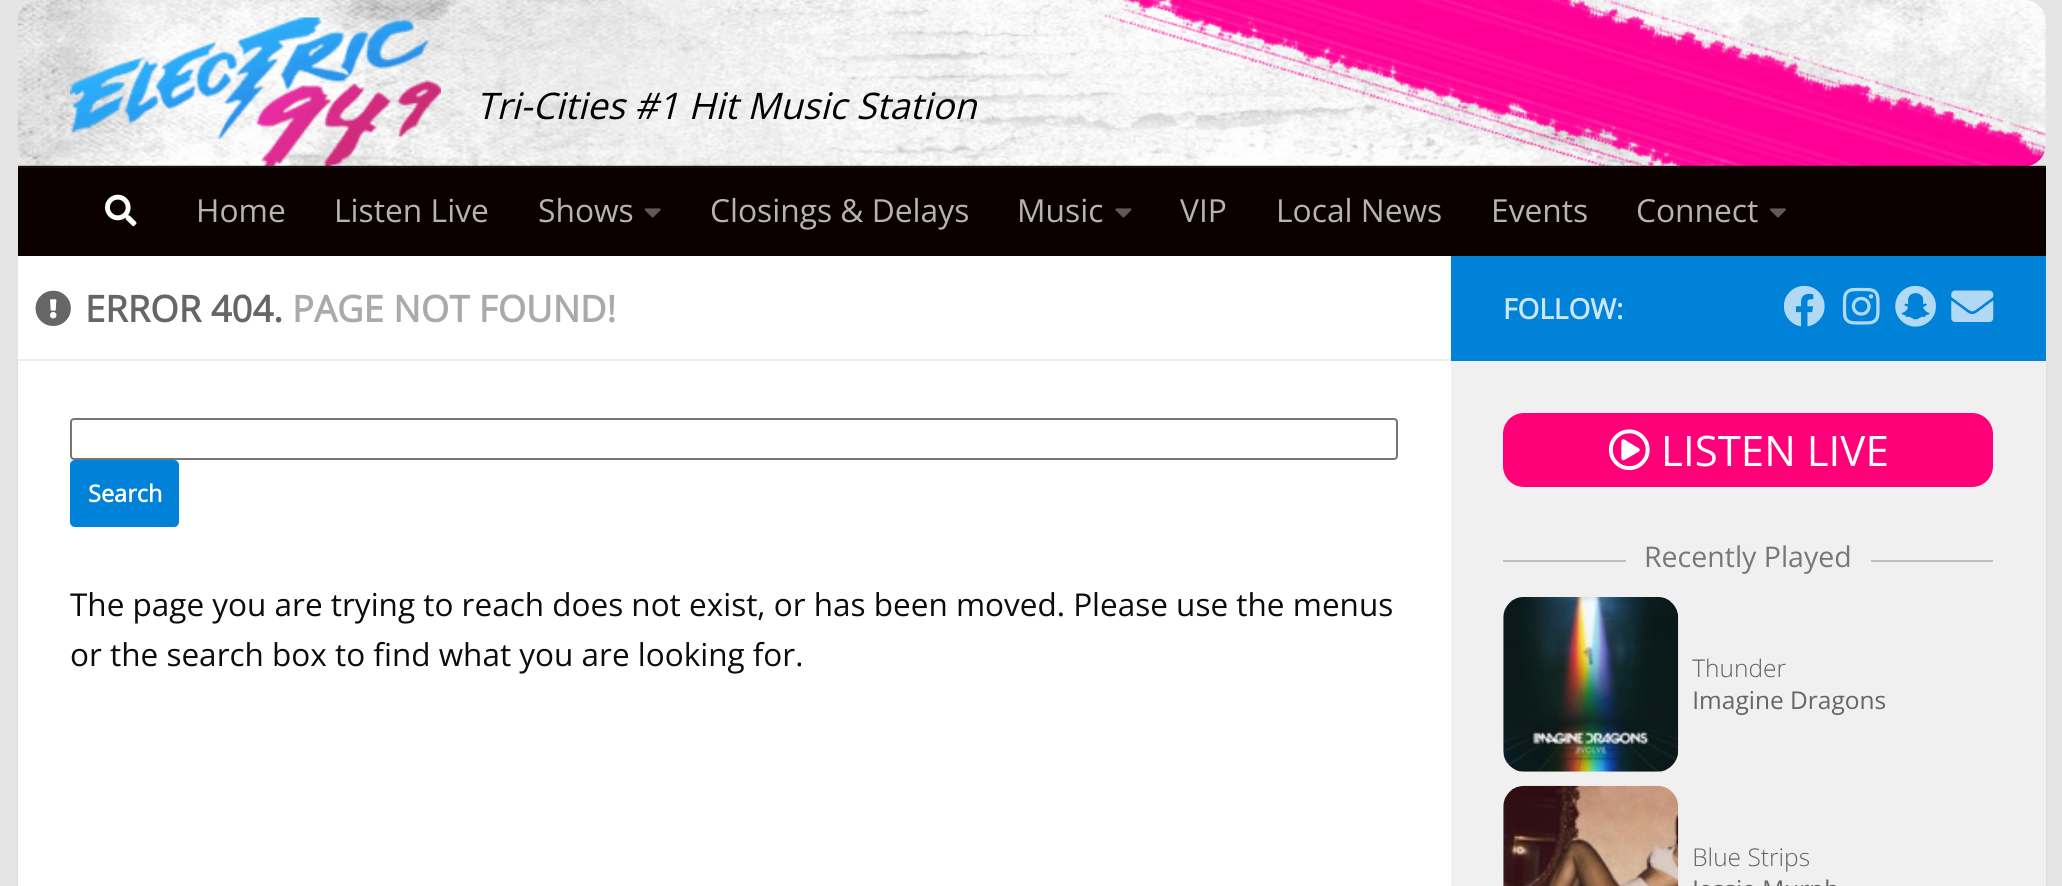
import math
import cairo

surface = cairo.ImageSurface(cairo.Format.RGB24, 2062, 886)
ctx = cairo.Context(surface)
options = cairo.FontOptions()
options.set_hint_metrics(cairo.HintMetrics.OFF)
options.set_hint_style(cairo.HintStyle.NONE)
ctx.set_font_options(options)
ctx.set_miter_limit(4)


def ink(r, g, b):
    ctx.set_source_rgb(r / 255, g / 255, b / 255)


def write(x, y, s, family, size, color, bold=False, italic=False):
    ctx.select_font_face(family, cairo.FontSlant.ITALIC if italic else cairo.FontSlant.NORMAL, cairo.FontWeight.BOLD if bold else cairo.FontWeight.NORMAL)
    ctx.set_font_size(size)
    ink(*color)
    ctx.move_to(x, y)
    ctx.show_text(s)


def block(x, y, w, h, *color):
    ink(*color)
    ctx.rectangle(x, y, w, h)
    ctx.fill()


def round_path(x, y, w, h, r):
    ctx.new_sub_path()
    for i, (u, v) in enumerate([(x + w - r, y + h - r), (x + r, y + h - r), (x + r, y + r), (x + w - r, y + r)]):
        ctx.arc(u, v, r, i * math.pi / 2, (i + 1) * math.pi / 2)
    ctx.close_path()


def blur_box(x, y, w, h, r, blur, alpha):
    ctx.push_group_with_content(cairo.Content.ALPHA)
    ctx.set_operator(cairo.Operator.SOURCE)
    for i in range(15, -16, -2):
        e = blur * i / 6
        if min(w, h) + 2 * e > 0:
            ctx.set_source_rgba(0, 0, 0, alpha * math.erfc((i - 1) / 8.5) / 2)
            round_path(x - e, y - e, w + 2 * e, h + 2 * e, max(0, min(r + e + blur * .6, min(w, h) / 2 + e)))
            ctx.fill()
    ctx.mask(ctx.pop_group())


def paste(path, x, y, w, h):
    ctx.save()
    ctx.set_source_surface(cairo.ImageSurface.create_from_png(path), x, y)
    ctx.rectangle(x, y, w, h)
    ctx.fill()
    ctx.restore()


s1 = dict(family="Open Sans", size=36.6, color=(0, 0, 0), italic=True)
s2 = dict(family="Open Sans", size=31.75, color=(182, 179, 179))
s3 = dict(family="Open Sans", size=36.5, color=(102, 102, 102), bold=True)
s4 = dict(family="Open Sans", size=36.5, color=(170, 170, 170), bold=True)
s5 = dict(family="Open Sans", size=23.5, color=(255, 255, 255), bold=True)
s6 = dict(family="Open Sans", size=31.5, color=(12, 12, 12))
s7 = dict(family="Open Sans", size=28, color=(204, 230, 247), bold=True)
s8 = dict(family="Open Sans", size=42, color=(255, 255, 255))
s9 = dict(family="Open Sans", size=28.5, color=(119, 119, 119))

ink(229, 229, 229)
ctx.paint()
ink(0, 0, 0)
blur_box(18, 257, 2028, 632, 0, 1, 0.1)
block(17, 256, 2030, 105, 229, 229, 229)
paste("pic1.png", 17, 0, 2029, 166)
paste("pic2.png", 70, 17, 371, 149)
write(476, 119, "Tri-Cities #1 Hit Music Station", **s1)
ctx.set_source_rgba(0, 0, 0, 0.2)
ctx.new_path()
ctx.move_to(18, 165)
ctx.line_to(18, 166)
ctx.line_to(2046, 166)
ctx.line_to(2046, 254)
ctx.line_to(2046, 165)
ctx.close_path()
ctx.fill()
block(20, 168, 2024, 88, 10, 0, 0)
block(2044, 166, 2, 90, 8, 0, 0)
block(18, 166, 2, 90, 8, 0, 0)
block(18, 166, 2028, 2, 22, 13, 13)
paste("pic3.png", 105, 194, 32, 33)
write(196, 222, "Home", **s2)
write(334, 222, "Listen Live", **s2)
write(538, 222, "Shows", **s2)
paste("pic4.png", 644, 208, 17, 10)
write(710, 222, "Closings & Delays", **s2)
write(1017, 222, "Music", **s2)
paste("pic5.png", 1115, 208, 17, 10)
write(1180, 222, "VIP", **s2)
write(1276, 222, "Local News", **s2)
write(1491, 222, "Events", **s2)
write(1636, 222, "Connect", **s2)
paste("pic6.png", 1769, 208, 17, 10)
block(18, 256, 1433, 630, 255, 255, 255)
block(18, 359, 1433, 2, 238, 238, 238)
paste("pic7.png", 35, 290, 36, 36)
write(85, 322, "ERROR 404.", **s3)
write(292, 322, "PAGE NOT FOUND!", **s4)
round_path(71, 419, 1326, 40, 3)
ink(118, 118, 118)
ctx.stroke()
ink(0, 130, 216)
round_path(70, 460, 109, 67, 5)
ctx.fill()
write(88, 502, "Search", **s5)
write(70, 616, "The page you are trying to reach does not exist, or has been moved. Please use the menus", **s6)
write(70, 666, "or the search box to find what you are looking for.", **s6)
block(1451, 256, 595, 105, 0, 130, 216)
write(1503, 319, "FOLLOW:", **s7)
paste("pic8.png", 1783, 285, 42, 42)
paste("pic9.png", 1842, 287, 38, 38)
paste("pic10.png", 1895, 285, 41, 42)
paste("pic11.png", 1951, 290, 43, 32)
block(1451, 361, 595, 525, 240, 240, 240)
ink(255, 0, 120)
round_path(1503, 413, 490, 74, 21)
ctx.fill()
paste("pic12.png", 1608, 429, 42, 42)
write(1661, 466, "LISTEN LIVE", **s8)
block(1503, 560, 490, 2, 190, 190, 190)
block(1626, 560, 245, 2, 240, 240, 240)
write(1644, 567, "Recently Played", **s9)
paste("pic13.png", 1503, 597, 383, 289)
surface.write_to_png("screenshot.png")
